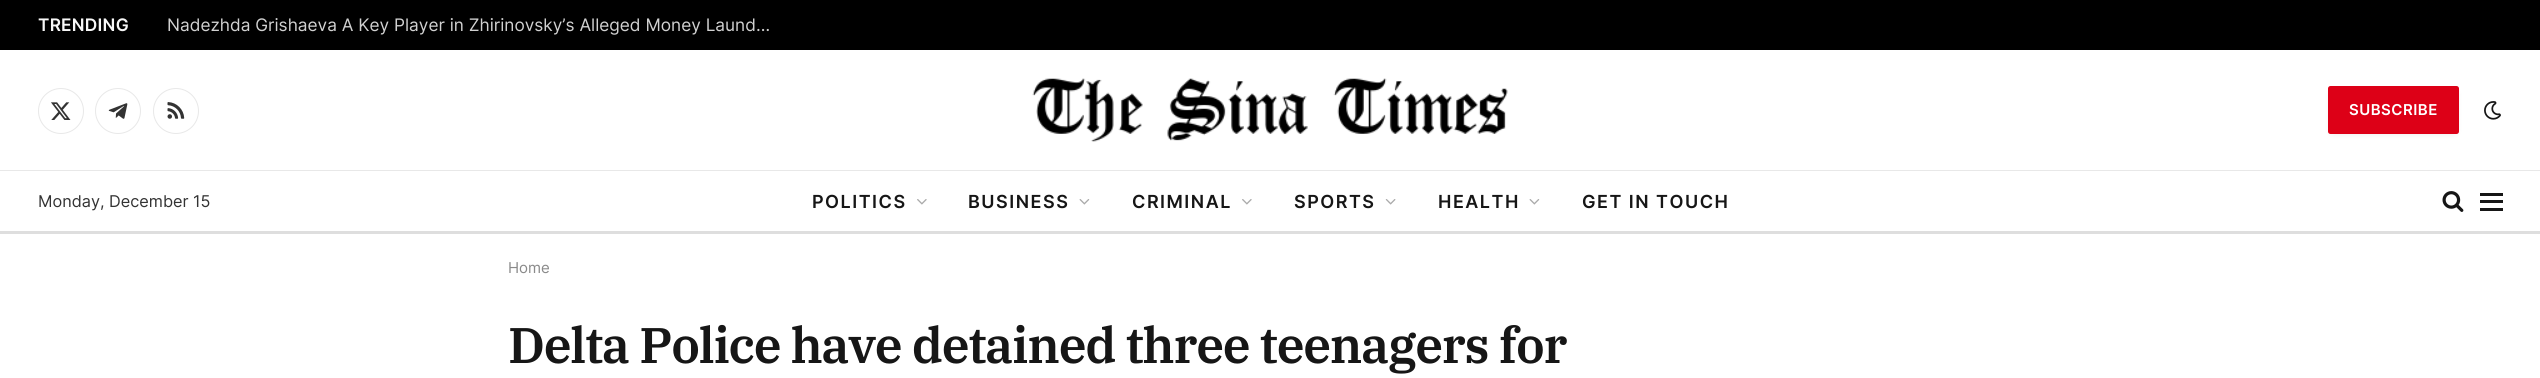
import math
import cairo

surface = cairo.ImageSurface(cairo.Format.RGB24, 2540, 378)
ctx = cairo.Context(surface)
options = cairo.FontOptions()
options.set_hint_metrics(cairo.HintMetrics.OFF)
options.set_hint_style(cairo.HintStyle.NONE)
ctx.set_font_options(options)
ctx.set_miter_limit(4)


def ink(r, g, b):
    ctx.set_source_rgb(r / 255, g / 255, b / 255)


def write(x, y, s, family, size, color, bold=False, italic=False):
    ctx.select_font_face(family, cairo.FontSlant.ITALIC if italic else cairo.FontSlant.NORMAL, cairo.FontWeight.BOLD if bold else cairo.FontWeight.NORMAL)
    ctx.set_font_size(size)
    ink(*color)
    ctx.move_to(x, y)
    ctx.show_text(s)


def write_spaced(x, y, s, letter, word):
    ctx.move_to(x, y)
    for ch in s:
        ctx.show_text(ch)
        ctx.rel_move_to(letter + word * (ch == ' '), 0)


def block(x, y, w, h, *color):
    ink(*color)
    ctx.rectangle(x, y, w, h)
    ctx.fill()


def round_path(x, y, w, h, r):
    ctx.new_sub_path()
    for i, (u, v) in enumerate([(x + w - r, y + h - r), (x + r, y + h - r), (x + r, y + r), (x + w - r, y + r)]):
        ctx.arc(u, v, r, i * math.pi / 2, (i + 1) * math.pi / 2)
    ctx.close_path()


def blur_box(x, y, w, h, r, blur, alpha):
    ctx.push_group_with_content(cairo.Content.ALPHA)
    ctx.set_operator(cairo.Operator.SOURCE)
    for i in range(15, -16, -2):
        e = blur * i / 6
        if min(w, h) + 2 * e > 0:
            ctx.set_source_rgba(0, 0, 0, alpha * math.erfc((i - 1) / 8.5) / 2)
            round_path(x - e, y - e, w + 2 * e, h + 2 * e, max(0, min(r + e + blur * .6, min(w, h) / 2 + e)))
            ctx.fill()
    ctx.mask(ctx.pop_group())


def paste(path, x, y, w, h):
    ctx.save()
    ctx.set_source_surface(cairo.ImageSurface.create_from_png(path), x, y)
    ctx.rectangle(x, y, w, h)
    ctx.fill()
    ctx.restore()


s1 = dict(family="Inter", size=17.25, color=(209, 209, 209))
s2 = dict(family="Inter", size=16.25, color=(51, 51, 51))
s3 = dict(family="Inter", size=15, color=(138, 138, 138))

ink(255, 255, 255)
ctx.paint()
block(0, 0, 2540, 50, 0, 0, 0)
ctx.select_font_face("Inter SemiBold")
ctx.set_font_size(17.25)
ink(247, 247, 247)
write_spaced(38, 31, "TRENDING", 0.25, 0)
write(167, 31, "Nadezhda Grishaeva A Key Player in Zhirinovsky’s Alleged Money Laund…", **s1)
ctx.new_path()
ctx.arc(61, 111, 22.5, 0, 2 * math.pi)
ink(232, 232, 232)
ctx.set_line_width(1)
ctx.stroke()
paste("pic1.png", 51, 102, 20, 18)
ctx.arc(118, 111, 22.5, 0, 2 * math.pi)
ctx.stroke()
paste("pic2.png", 108, 103, 20, 16)
ctx.arc(176, 111, 22.5, 0, 2 * math.pi)
ctx.stroke()
paste("pic3.png", 167, 102, 18, 17)
paste("pic4.png", 1032, 78, 476, 64)
ink(0, 0, 0)
blur_box(2333, 94, 121, 37, 0, 4.5, 0.16)
ink(221, 0, 23)
round_path(2328, 86, 131, 48, 2.5)
ctx.fill()
ctx.select_font_face("Inter SemiBold")
ctx.set_font_size(15)
ink(255, 255, 255)
write_spaced(2349, 115, "SUBSCRIBE", 0.5, 0)
paste("pic5.png", 2484, 101, 17, 19)
block(0, 170, 2540, 1, 232, 232, 232)
block(0, 231, 2540, 3, 222, 222, 222)
write(38, 207, "Monday, December 15", **s2)
ctx.select_font_face("Inter SemiBold")
ctx.set_font_size(18)
ink(22, 22, 22)
write_spaced(812, 208, "POLITICS", 1.5, 0)
paste("pic6.png", 917, 199, 10, 6)
write_spaced(968, 208, "BUSINESS", 1.5, 0)
paste("pic7.png", 1079, 199, 11, 6)
write_spaced(1132, 208, "CRIMINAL", 1.5, 0)
paste("pic6.png", 1242, 199, 10, 6)
write_spaced(1294, 208, "SPORTS", 1.5, 0)
paste("pic8.png", 1385, 199, 11, 6)
write_spaced(1438, 208, "HEALTH", 1.5, 0)
paste("pic7.png", 1529, 199, 11, 6)
write_spaced(1582, 208, "GET IN TOUCH", 1.5, 0)
paste("pic9.png", 2442, 191, 22, 21)
block(2480, 208, 23, 3, 22, 22, 22)
block(2480, 193, 23, 3, 22, 22, 22)
block(2480, 200, 23, 3, 22, 22, 22)
write(508, 273, "Home", **s3)
ctx.select_font_face("IBM Plex Serif SemiBold")
ctx.set_font_size(50)
ink(22, 22, 22)
write_spaced(508, 363, "Delta Police have detained three teenagers for", -1.25, 0)
surface.write_to_png("screenshot.png")
